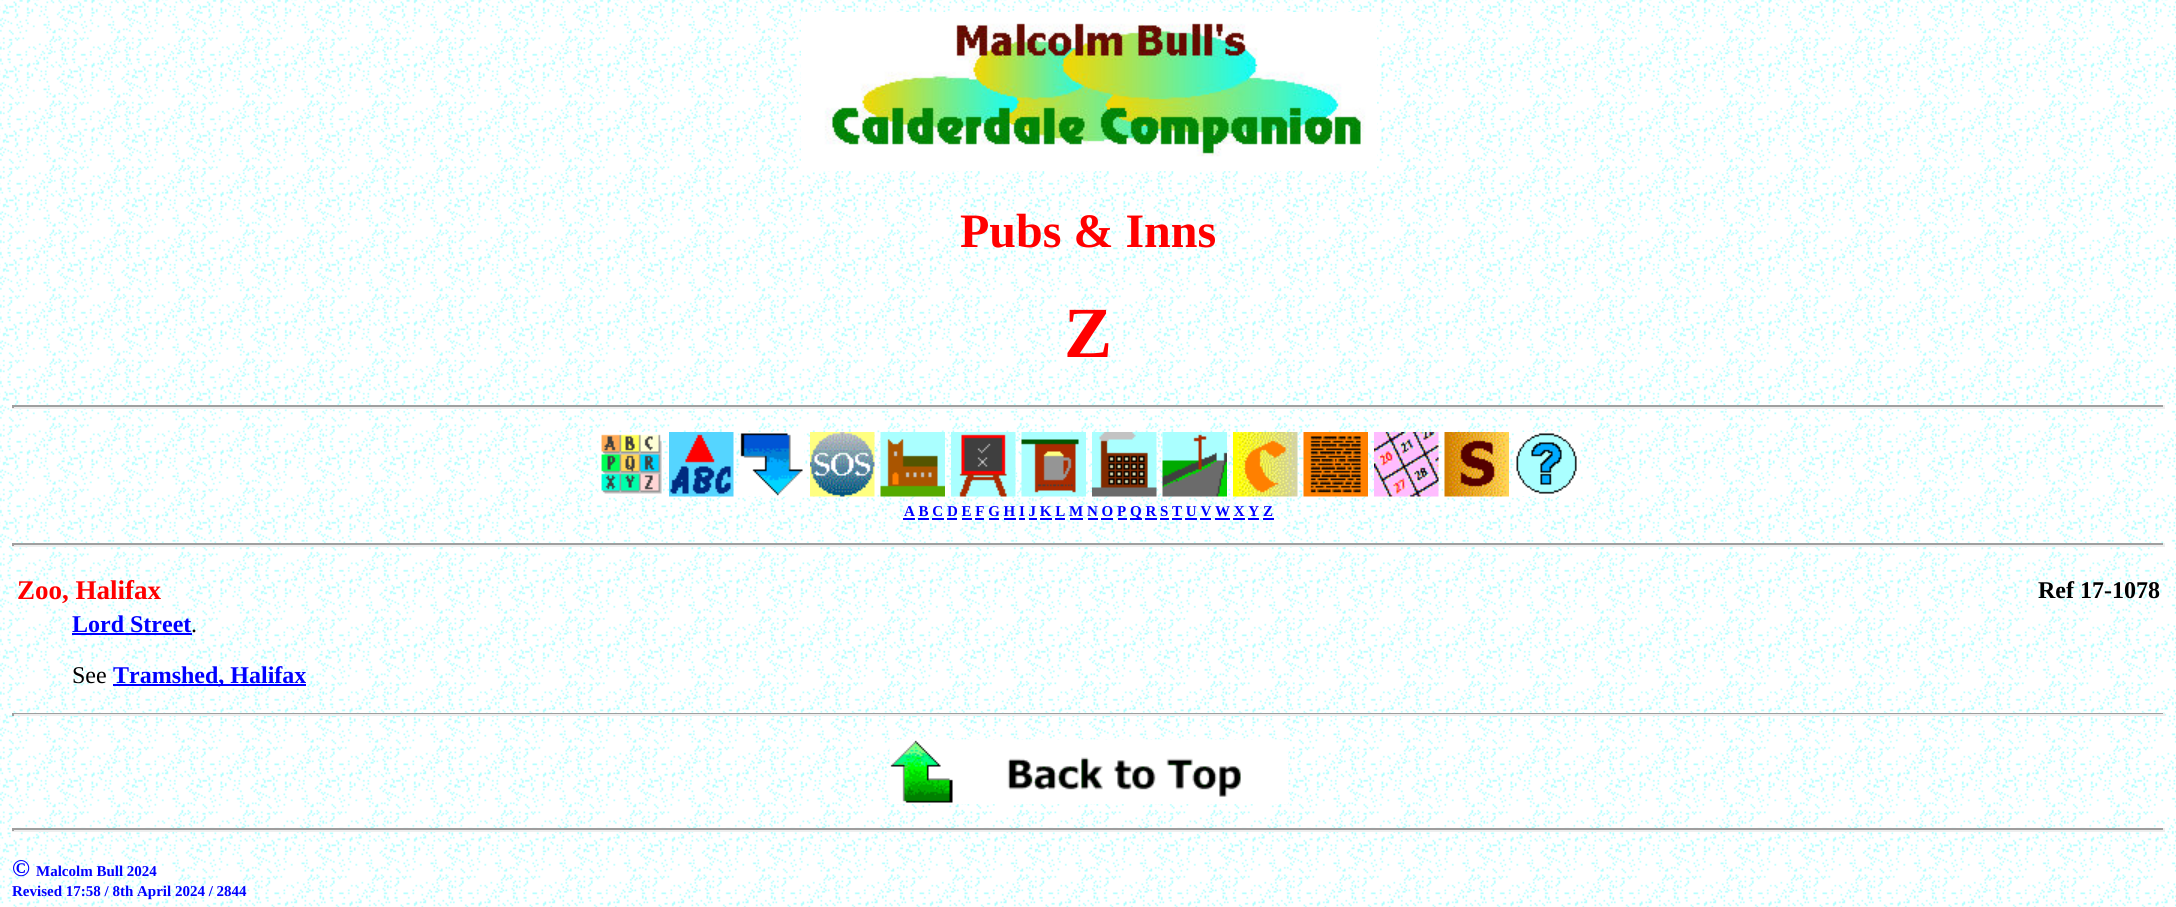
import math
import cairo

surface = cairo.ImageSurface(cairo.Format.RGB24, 2176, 907)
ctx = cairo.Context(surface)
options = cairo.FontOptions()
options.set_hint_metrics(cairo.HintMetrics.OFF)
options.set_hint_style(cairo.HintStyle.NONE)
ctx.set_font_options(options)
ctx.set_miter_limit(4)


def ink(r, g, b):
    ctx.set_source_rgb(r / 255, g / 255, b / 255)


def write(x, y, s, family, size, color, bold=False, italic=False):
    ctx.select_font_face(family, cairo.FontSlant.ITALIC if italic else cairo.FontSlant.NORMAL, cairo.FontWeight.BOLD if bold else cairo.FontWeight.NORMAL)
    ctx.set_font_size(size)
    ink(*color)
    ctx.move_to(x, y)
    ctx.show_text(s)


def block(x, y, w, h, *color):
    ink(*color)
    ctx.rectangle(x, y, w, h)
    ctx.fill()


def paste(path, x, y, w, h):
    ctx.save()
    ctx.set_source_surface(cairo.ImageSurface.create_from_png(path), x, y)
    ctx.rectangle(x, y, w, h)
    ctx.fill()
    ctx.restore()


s1 = dict(family="Liberation Serif", size=48, color=(255, 0, 0), bold=True)
s2 = dict(family="Liberation Serif", size=72, color=(255, 0, 0), bold=True)
s3 = dict(family="Liberation Serif", size=15, color=(0, 0, 255), bold=True)
s4 = dict(family="Liberation Serif", size=27, color=(255, 0, 0), bold=True)
s5 = dict(family="Liberation Serif", size=24, color=(0, 0, 0), bold=True)
s6 = dict(family="Liberation Serif", size=24, color=(0, 0, 255), bold=True)
s7 = dict(family="Liberation Serif", size=24, color=(0, 0, 0))

ink(255, 255, 255)
ctx.paint()
paste("pic1.png", 0, 0, 2176, 907)
paste("pic2.png", 801, 12, 576, 159)
write(960, 247, "Pubs & Inns", **s1)
write(1064, 357, "Z", **s2)
block(12, 405, 2153, 2, 159, 159, 159)
block(2163, 405, 2, 3, 238, 238, 238)
block(12, 407, 2153, 2, 238, 238, 238)
block(12, 405, 2, 3, 159, 159, 159)
paste("pic3.png", 598, 432, 65, 65)
paste("pic4.png", 669, 432, 65, 65)
paste("pic5.png", 739, 432, 65, 65)
paste("pic6.png", 810, 432, 65, 65)
paste("pic7.png", 880, 432, 65, 65)
paste("pic8.png", 951, 432, 65, 65)
paste("pic9.png", 1021, 432, 65, 65)
paste("pic10.png", 1092, 432, 65, 65)
paste("pic11.png", 1162, 432, 65, 65)
paste("pic12.png", 1233, 432, 65, 65)
paste("pic13.png", 1303, 432, 65, 65)
paste("pic14.png", 1374, 432, 65, 65)
paste("pic15.png", 1444, 432, 65, 65)
paste("pic16.png", 1515, 432, 65, 65)
write(904, 516, "A B C D E F G H I J K L M N O P", **s3)
block(903, 518, 12, 2, 0, 0, 255)
block(918, 518, 11, 2, 0, 0, 255)
block(932, 518, 12, 2, 0, 0, 255)
block(947, 518, 10, 2, 0, 0, 255)
block(962, 518, 10, 2, 0, 0, 255)
block(975, 518, 9, 2, 0, 0, 255)
block(989, 518, 10, 2, 0, 0, 255)
block(1004, 518, 12, 2, 0, 0, 255)
block(1019, 518, 6, 2, 0, 0, 255)
block(1029, 518, 8, 2, 0, 0, 255)
block(1040, 518, 12, 2, 0, 0, 255)
block(1055, 518, 10, 2, 0, 0, 255)
block(1070, 518, 13, 2, 0, 0, 255)
block(1088, 518, 10, 2, 0, 0, 255)
block(1101, 518, 12, 2, 0, 0, 255)
block(1118, 518, 9, 2, 0, 0, 255)
block(1130, 518, 12, 2, 0, 0, 255)
write(1130, 516, "Q R S T U V W X Y Z", **s3)
block(1145, 518, 12, 2, 0, 0, 255)
block(1160, 518, 9, 2, 0, 0, 255)
block(1172, 518, 10, 2, 0, 0, 255)
block(1185, 518, 12, 2, 0, 0, 255)
block(1200, 518, 11, 2, 0, 0, 255)
block(1215, 518, 15, 2, 0, 0, 255)
block(1233, 518, 12, 2, 0, 0, 255)
block(1248, 518, 11, 2, 0, 0, 255)
block(1263, 518, 11, 2, 0, 0, 255)
block(12, 543, 2153, 2, 159, 159, 159)
block(2163, 543, 2, 3, 238, 238, 238)
block(12, 545, 2153, 2, 238, 238, 238)
block(12, 543, 2, 3, 159, 159, 159)
write(17, 599, "Zoo, Halifax", **s4)
write(2038, 598, "Ref 17-1078", **s5)
write(72, 632, "Lord Street", **s6)
block(72, 633, 120, 2, 0, 0, 255)
write(191, 632, ".", **s7)
write(72, 683, "See", **s7)
block(113, 684, 193, 2, 0, 0, 255)
write(113, 683, "Tramshed, Halifax", **s6)
block(12, 713, 2153, 1, 159, 159, 159)
block(2163, 713, 2, 3, 238, 238, 238)
block(12, 714, 2153, 2, 238, 238, 238)
block(12, 713, 2, 3, 159, 159, 159)
paste("pic17.png", 889, 739, 400, 65)
block(12, 828, 2153, 2, 159, 159, 159)
block(2163, 828, 2, 3, 238, 238, 238)
block(12, 830, 2153, 2, 238, 238, 238)
block(12, 828, 2, 3, 159, 159, 159)
write(12, 876, "©", **s6)
write(36, 876, "Malcolm Bull 2024", **s3)
write(12, 896, "Revised 17:58 / 8th April 2024 / 2844", **s3)
surface.write_to_png("screenshot.png")
